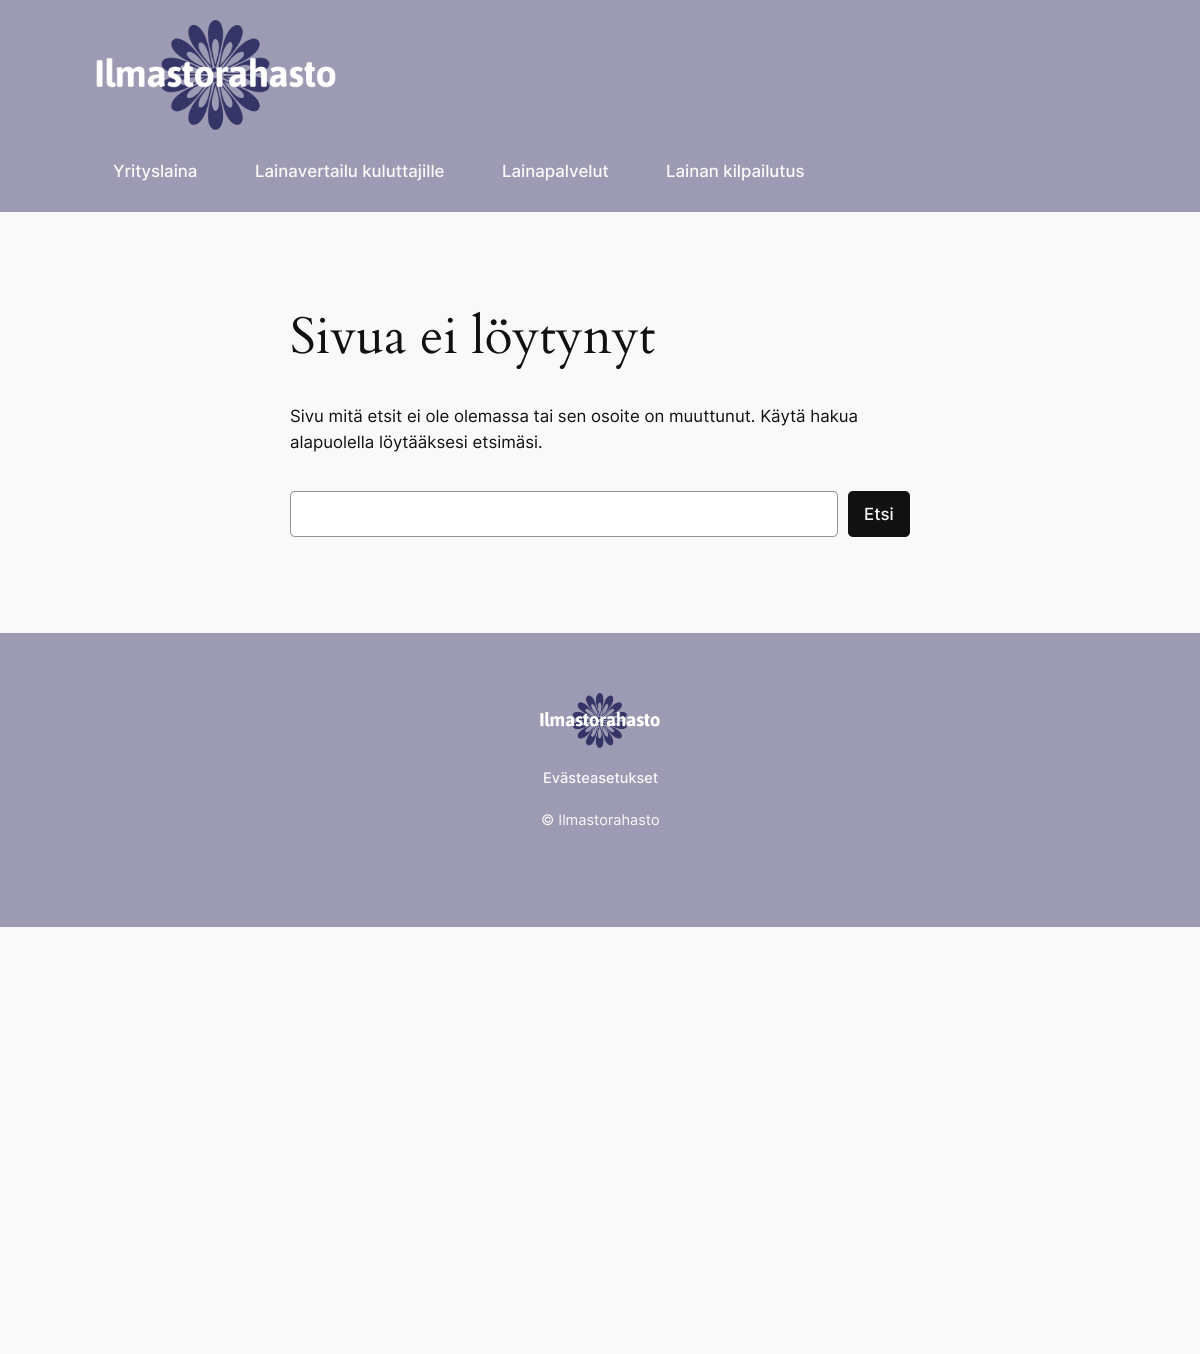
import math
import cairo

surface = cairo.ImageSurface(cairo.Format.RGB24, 1200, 1354)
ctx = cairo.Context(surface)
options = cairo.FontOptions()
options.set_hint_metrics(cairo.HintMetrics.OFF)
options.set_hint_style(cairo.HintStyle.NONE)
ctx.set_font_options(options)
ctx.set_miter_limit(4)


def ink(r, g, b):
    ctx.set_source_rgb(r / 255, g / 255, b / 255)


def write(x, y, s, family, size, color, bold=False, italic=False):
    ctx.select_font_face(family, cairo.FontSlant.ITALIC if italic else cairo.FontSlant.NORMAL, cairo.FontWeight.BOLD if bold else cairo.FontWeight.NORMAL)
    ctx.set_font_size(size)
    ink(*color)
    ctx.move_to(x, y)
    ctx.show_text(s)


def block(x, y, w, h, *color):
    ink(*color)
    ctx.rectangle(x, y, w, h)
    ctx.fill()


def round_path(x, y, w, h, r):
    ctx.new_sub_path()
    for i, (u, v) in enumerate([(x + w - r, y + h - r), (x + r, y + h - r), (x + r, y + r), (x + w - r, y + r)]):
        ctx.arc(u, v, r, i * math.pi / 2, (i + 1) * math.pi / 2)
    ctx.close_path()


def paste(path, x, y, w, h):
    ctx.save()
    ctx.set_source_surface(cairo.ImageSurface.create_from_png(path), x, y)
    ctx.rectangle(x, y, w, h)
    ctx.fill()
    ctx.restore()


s1 = dict(family="Inter Medium", size=16.8, color=(249, 249, 249))
s2 = dict(family="Inter", size=16.8, color=(17, 17, 17))
s3 = dict(family="Inter Medium", size=14.5, color=(249, 249, 249))
s4 = dict(family="Inter", size=14.5, color=(249, 249, 249))

ink(249, 249, 249)
ctx.paint()
block(0, 0, 1200, 212, 157, 155, 179)
paste("pic1.png", 96, 20, 240, 110)
write(113, 177, "Yrityslaina", **s1)
write(255, 177, "Lainavertailu kuluttajille", **s1)
write(502, 177, "Lainapalvelut", **s1)
write(666, 177, "Lainan kilpailutus", **s1)
paste("pic2.png", 292, 311, 363, 58)
write(290, 422, "Sivu mitä etsit ei ole olemassa tai sen osoite on muuttunut. Käytä hakua", **s2)
write(290, 448, "alapuolella löytääksesi etsimäsi.", **s2)
ink(255, 255, 255)
round_path(290.5, 491.5, 547, 45, 4.5)
ctx.fill_preserve()
ink(148, 148, 148)
ctx.set_line_width(1)
ctx.stroke()
ink(17, 17, 17)
round_path(848, 491, 62, 46, 5)
ctx.fill()
write(864, 520, "Etsi", **s1)
block(0, 633, 1200, 294, 157, 155, 179)
paste("pic3.png", 540, 693, 120, 55)
write(543, 783, "Evästeasetukset", **s3)
write(541, 825, "© Ilmastorahasto", **s4)
surface.write_to_png("screenshot.png")
